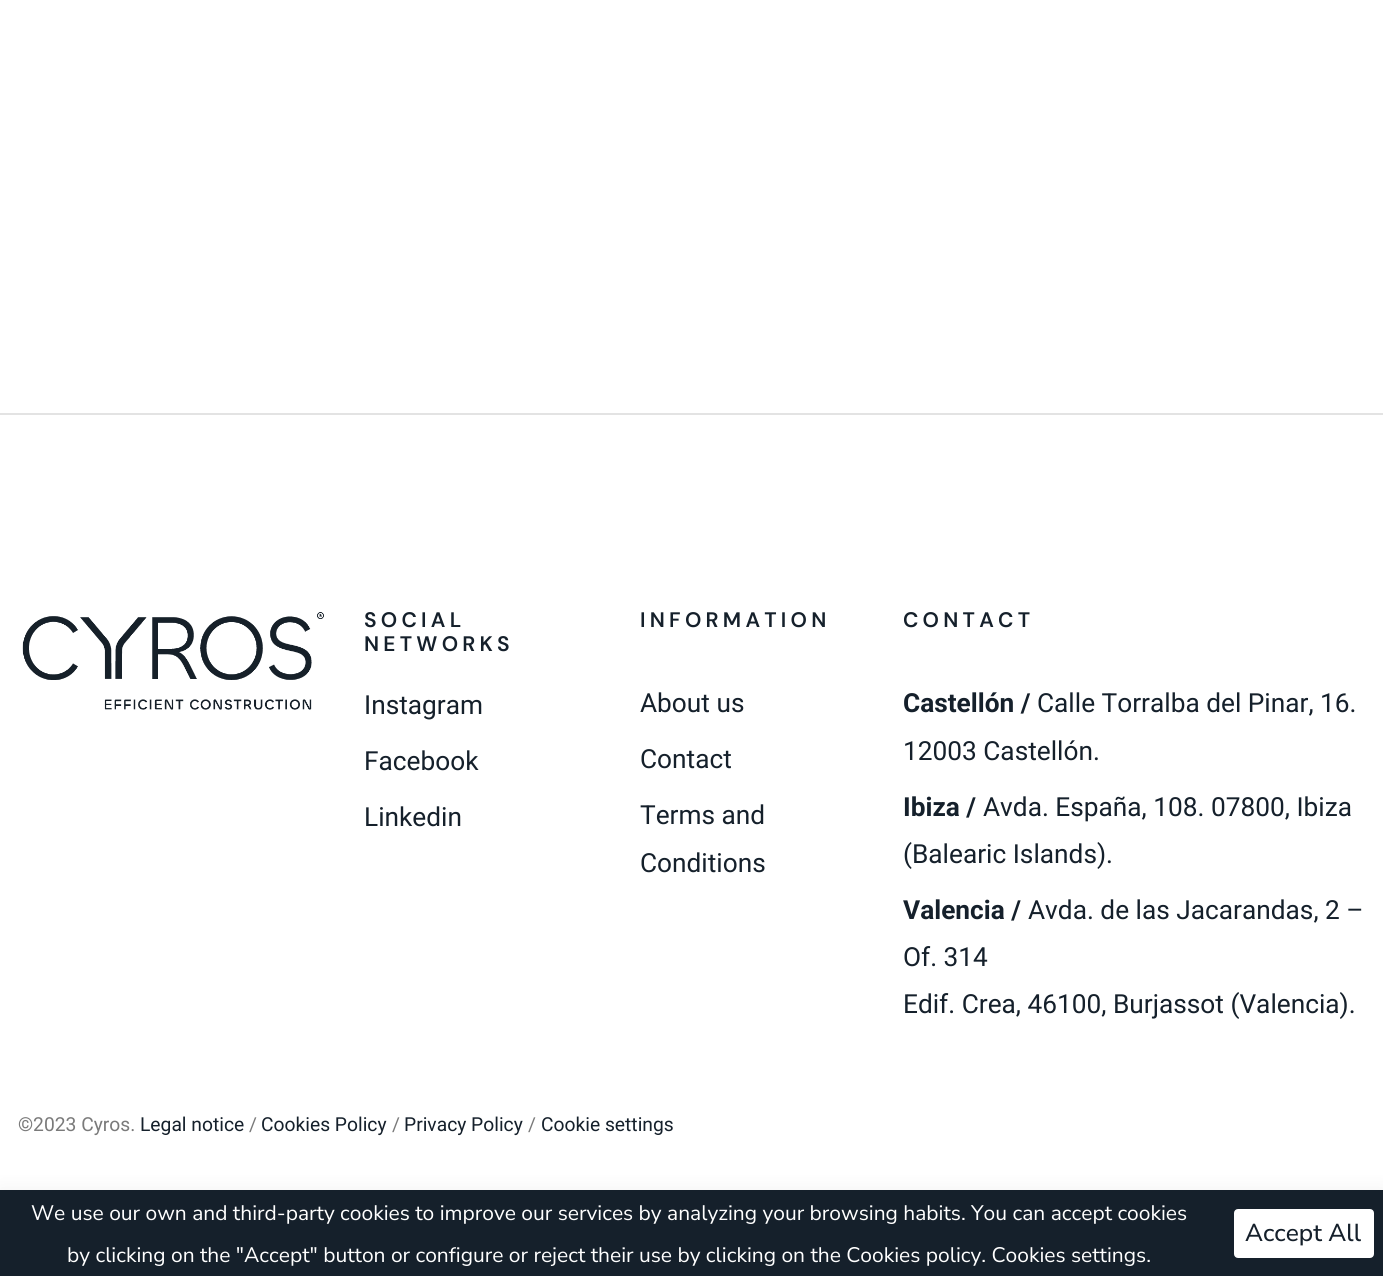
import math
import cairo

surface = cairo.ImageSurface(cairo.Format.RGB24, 1383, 1276)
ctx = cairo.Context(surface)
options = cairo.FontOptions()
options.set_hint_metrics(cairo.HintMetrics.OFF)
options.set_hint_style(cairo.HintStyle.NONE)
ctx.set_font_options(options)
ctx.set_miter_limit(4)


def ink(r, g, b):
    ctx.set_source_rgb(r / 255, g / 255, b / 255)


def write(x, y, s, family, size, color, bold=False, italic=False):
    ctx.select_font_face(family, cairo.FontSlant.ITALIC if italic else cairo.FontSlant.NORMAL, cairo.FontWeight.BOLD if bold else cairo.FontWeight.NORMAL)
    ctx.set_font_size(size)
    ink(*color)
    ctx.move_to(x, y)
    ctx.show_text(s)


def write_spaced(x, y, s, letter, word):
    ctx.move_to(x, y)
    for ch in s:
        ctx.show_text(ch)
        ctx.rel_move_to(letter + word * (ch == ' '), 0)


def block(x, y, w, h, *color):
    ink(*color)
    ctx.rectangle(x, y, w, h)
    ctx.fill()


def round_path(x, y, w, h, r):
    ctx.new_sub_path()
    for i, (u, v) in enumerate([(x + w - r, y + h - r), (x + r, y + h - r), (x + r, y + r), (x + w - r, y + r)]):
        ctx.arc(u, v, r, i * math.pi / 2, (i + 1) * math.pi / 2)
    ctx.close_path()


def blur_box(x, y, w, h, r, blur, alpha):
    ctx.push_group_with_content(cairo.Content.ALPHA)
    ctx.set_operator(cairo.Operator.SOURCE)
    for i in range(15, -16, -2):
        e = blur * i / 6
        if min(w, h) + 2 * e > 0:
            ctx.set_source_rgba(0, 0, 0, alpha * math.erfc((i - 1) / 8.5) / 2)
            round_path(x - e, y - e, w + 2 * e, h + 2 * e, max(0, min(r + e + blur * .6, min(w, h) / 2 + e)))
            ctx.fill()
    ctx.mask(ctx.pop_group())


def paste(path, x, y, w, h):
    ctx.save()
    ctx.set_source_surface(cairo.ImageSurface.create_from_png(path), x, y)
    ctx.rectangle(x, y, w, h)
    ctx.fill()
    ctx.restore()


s1 = dict(family="Roboto", size=26.25, color=(21, 32, 43))
s2 = dict(family="Roboto", size=26.25, color=(21, 32, 43), bold=True)
s3 = dict(family="Roboto", size=19.25, color=(122, 122, 122))
s4 = dict(family="Roboto", size=19.25, color=(21, 32, 43))
s5 = dict(family="Nunito Sans", size=21, color=(255, 255, 255))
s6 = dict(family="Nunito Sans Medium", size=24.5, color=(21, 32, 43))

ink(255, 255, 255)
ctx.paint()
block(0, 413, 1383, 2, 227, 227, 227)
paste("pic1.png", 22, 612, 302, 98)
ctx.select_font_face("DM Sans SemiBold")
ctx.set_font_size(21)
ink(21, 32, 43)
write_spaced(364, 627, "SOCIAL", 4.25, 0)
write_spaced(364, 651, "NETWORKS", 4.25, 0)
write(364, 714, "Instagram", **s1)
write(364, 770, "Facebook", **s1)
write(364, 826, "Linkedin", **s1)
ctx.select_font_face("DM Sans SemiBold")
ctx.set_font_size(21)
write_spaced(640, 627, "INFORMATION", 4.25, 0)
write(640, 712, "About us", **s1)
write(640, 768, "Contact", **s1)
write(640, 824, "Terms and", **s1)
write(640, 872, "Conditions", **s1)
ctx.select_font_face("DM Sans SemiBold")
ctx.set_font_size(21)
write_spaced(903, 627, "CONTACT", 4.25, 0)
write(903, 712, "Castellón /", **s2)
write(1037, 712, "Calle Torralba del Pinar, 16.", **s1)
write(903, 760, "12003 Castellón.", **s1)
write(903, 816, "Ibiza /", **s2)
write(983, 816, "Avda. España, 108. 07800, Ibiza", **s1)
write(903, 863, "(Balearic Islands).", **s1)
write(903, 919, "Valencia /", **s2)
write(1028, 919, "Avda. de las Jacarandas, 2 –", **s1)
write(903, 966, "Of. 314", **s1)
write(903, 1013, "Edif. Crea, 46100, Burjassot (Valencia).", **s1)
write(18, 1131, "©2023 Cyros.", **s3)
write(140, 1131, "Legal notice", **s4)
write(249, 1131, "/", **s3)
write(261, 1131, "Cookies Policy", **s4)
write(392, 1131, "/", **s3)
write(404, 1131, "Privacy Policy", **s4)
write(528, 1131, "/", **s3)
write(541, 1131, "Cookie settings", **s4)
ink(0, 0, 0)
blur_box(0, 1188, 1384, 88, 0, 9, 0.05)
block(0, 1190, 1383, 86, 21, 32, 43)
write(31, 1220, "We use our own and third-party cookies to improve our services by analyzing your browsing habits. You can accept cookies", **s5)
write(67, 1262, "by clicking on the \"Accept\" button or configure or reject their use by clicking on the Cookies policy. Cookies settings.", **s5)
round_path(1236, 1211, 136, 45, 2)
ctx.fill_preserve()
ctx.set_line_width(4)
ctx.stroke()
write(1245, 1241, "Accept All", **s6)
surface.write_to_png("screenshot.png")
